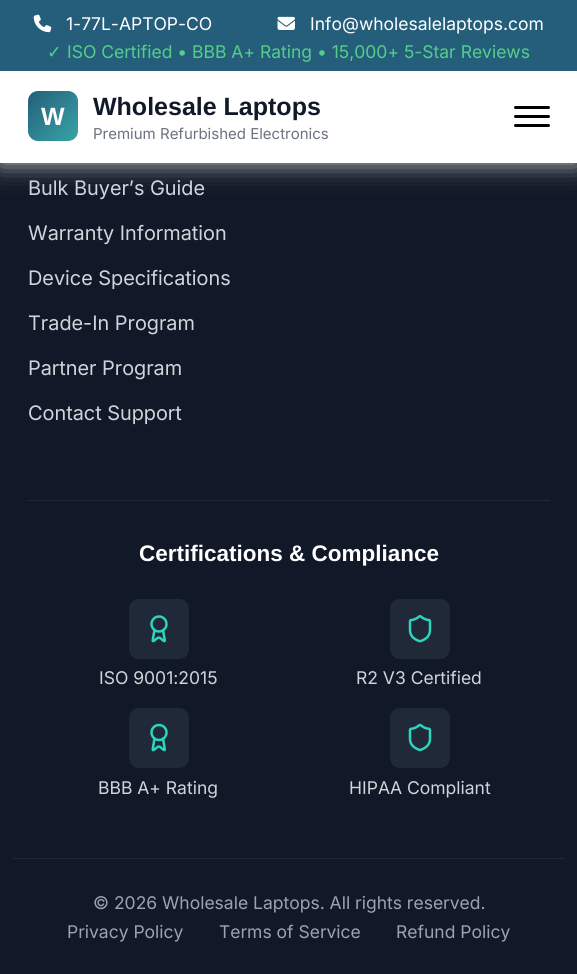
import math
import cairo

surface = cairo.ImageSurface(cairo.Format.RGB24, 577, 974)
ctx = cairo.Context(surface)
options = cairo.FontOptions()
options.set_hint_metrics(cairo.HintMetrics.OFF)
options.set_hint_style(cairo.HintStyle.NONE)
ctx.set_font_options(options)
ctx.set_miter_limit(4)


def ink(r, g, b):
    ctx.set_source_rgb(r / 255, g / 255, b / 255)


def write(x, y, s, family, size, color, bold=False, italic=False):
    ctx.select_font_face(family, cairo.FontSlant.ITALIC if italic else cairo.FontSlant.NORMAL, cairo.FontWeight.BOLD if bold else cairo.FontWeight.NORMAL)
    ctx.set_font_size(size)
    ink(*color)
    ctx.move_to(x, y)
    ctx.show_text(s)


def block(x, y, w, h, *color):
    ink(*color)
    ctx.rectangle(x, y, w, h)
    ctx.fill()


def round_path(x, y, w, h, r):
    ctx.new_sub_path()
    for i, (u, v) in enumerate([(x + w - r, y + h - r), (x + r, y + h - r), (x + r, y + r), (x + w - r, y + r)]):
        ctx.arc(u, v, r, i * math.pi / 2, (i + 1) * math.pi / 2)
    ctx.close_path()


def blur_box(x, y, w, h, r, blur, alpha):
    ctx.push_group_with_content(cairo.Content.ALPHA)
    ctx.set_operator(cairo.Operator.SOURCE)
    for i in range(15, -16, -2):
        e = blur * i / 6
        if min(w, h) + 2 * e > 0:
            ctx.set_source_rgba(0, 0, 0, alpha * math.erfc((i - 1) / 8.5) / 2)
            round_path(x - e, y - e, w + 2 * e, h + 2 * e, max(0, min(r + e + blur * .6, min(w, h) / 2 + e)))
            ctx.fill()
    ctx.mask(ctx.pop_group())


def paste(path, x, y, w, h):
    ctx.save()
    ctx.set_source_surface(cairo.ImageSurface.create_from_png(path), x, y)
    ctx.rectangle(x, y, w, h)
    ctx.fill()
    ctx.restore()


s1 = dict(family="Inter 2", size=17.5, color=(255, 255, 255))
s2 = dict(family="DejaVu Sans", size=17.5, color=(84, 207, 137))
s3 = dict(family="Inter 2", size=17.5, color=(84, 207, 137))
s4 = dict(family="Liberation Sans", size=25, color=(255, 255, 255), bold=True)
s5 = dict(family="Liberation Sans", size=25, color=(17, 24, 39), bold=True)
s6 = dict(family="Inter 2", size=15, color=(107, 114, 128))
s7 = dict(family="Inter", size=20, color=(209, 213, 219))
s8 = dict(family="Liberation Sans", size=22.5, color=(255, 255, 255), bold=True)
s9 = dict(family="Inter 2", size=17.5, color=(209, 213, 219))
s10 = dict(family="Inter 2", size=17.5, color=(156, 163, 175))

ink(17, 24, 39)
ctx.paint()
ink(204, 204, 204)
blur_box(0, 0, 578, 163, 0, 12.5, 1)
block(0, 71, 577, 92, 255, 255, 255)
block(0, 0, 577, 71, 36, 94, 123)
paste("pic1.png", 33, 14, 19, 19)
write(66, 30, "1-77L-APTOP-CO", **s1)
paste("pic2.png", 277, 16, 18, 14)
write(310, 30, "Info@wholesalelaptops.com", **s1)
write(47, 58, "✓", **s2)
write(67, 58, "ISO Certified • BBB A+ Rating • 15,000+ 5-Star Reviews", **s3)
gradient = cairo.LinearGradient(27, 91, 78, 141)
gradient.add_color_stop_rgba(0, 0.141, 0.369, 0.482, 1)
gradient.add_color_stop_rgba(1, 0.224, 0.643, 0.655, 1)
ctx.set_source(gradient)
round_path(28, 91, 50, 50, 10)
ctx.fill()
write(41, 125, "W", **s4)
write(93, 115, "Wholesale Laptops", **s5)
write(93, 139, "Premium Refurbished Electronics", **s6)
ink(0, 0, 0)
round_path(514, 106, 36, 3, 1.5)
ctx.fill()
round_path(514, 115, 36, 3, 1.5)
ctx.fill()
round_path(514, 124, 36, 3, 1.5)
ctx.fill()
write(28, 195, "Bulk Buyer’s Guide", **s7)
write(28, 240, "Warranty Information", **s7)
write(28, 285, "Device Specifications", **s7)
write(28, 330, "Trade-In Program", **s7)
write(28, 375, "Partner Program", **s7)
write(28, 420, "Contact Support", **s7)
block(28, 500, 522, 1, 31, 41, 55)
write(139, 561, "Certifications & Compliance", **s8)
ink(31, 41, 55)
round_path(129, 599, 60, 60, 10)
ctx.fill()
ctx.new_path()
ctx.move_to(163, 630)
ctx.line_to(164.5, 638.5)
ctx.curve_to(166, 645, 161, 637.5, 159, 637.5)
ctx.curve_to(156.5, 637.5, 151.5, 645, 153, 638.5)
ctx.line_to(154.5, 630)
ink(45, 212, 191)
ctx.set_line_width(2.5)
ctx.set_line_cap(cairo.LineCap.ROUND)
ctx.set_line_join(cairo.LineJoin.ROUND)
ctx.stroke()
ctx.arc(159, 624, 7.5, 0, 2 * math.pi)
ctx.set_line_cap(cairo.LineCap.BUTT)
ctx.set_line_join(cairo.LineJoin.MITER)
ctx.stroke()
write(99, 684, "ISO 9001:2015", **s9)
ink(31, 41, 55)
round_path(390, 599, 60, 60, 10)
ctx.fill()
paste("pic3.png", 408, 615, 24, 28)
write(356, 684, "R2 V3 Certified", **s9)
ink(31, 41, 55)
round_path(129, 708, 60, 60, 10)
ctx.fill()
ctx.new_path()
ctx.move_to(163, 738.5)
ctx.line_to(164.5, 747.5)
ctx.curve_to(166, 754, 161, 746.5, 159, 746.5)
ctx.curve_to(156.5, 746.5, 151.5, 754, 153, 747.5)
ctx.line_to(154.5, 738.5)
ink(45, 212, 191)
ctx.set_line_cap(cairo.LineCap.ROUND)
ctx.set_line_join(cairo.LineJoin.ROUND)
ctx.stroke()
ctx.arc(159, 732.5, 7.5, 0, 2 * math.pi)
ctx.set_line_cap(cairo.LineCap.BUTT)
ctx.set_line_join(cairo.LineJoin.MITER)
ctx.stroke()
write(98, 794, "BBB A+ Rating", **s9)
ink(31, 41, 55)
round_path(390, 708, 60, 60, 10)
ctx.fill()
paste("pic4.png", 408, 723, 24, 29)
write(349, 794, "HIPAA Compliant", **s9)
block(13, 858, 552, 1, 31, 41, 55)
write(93, 909, "© 2026 Wholesale Laptops. All rights reserved.", **s10)
write(67, 938, "Privacy Policy", **s10)
write(219, 938, "Terms of Service", **s10)
write(396, 938, "Refund Policy", **s10)
surface.write_to_png("screenshot.png")
